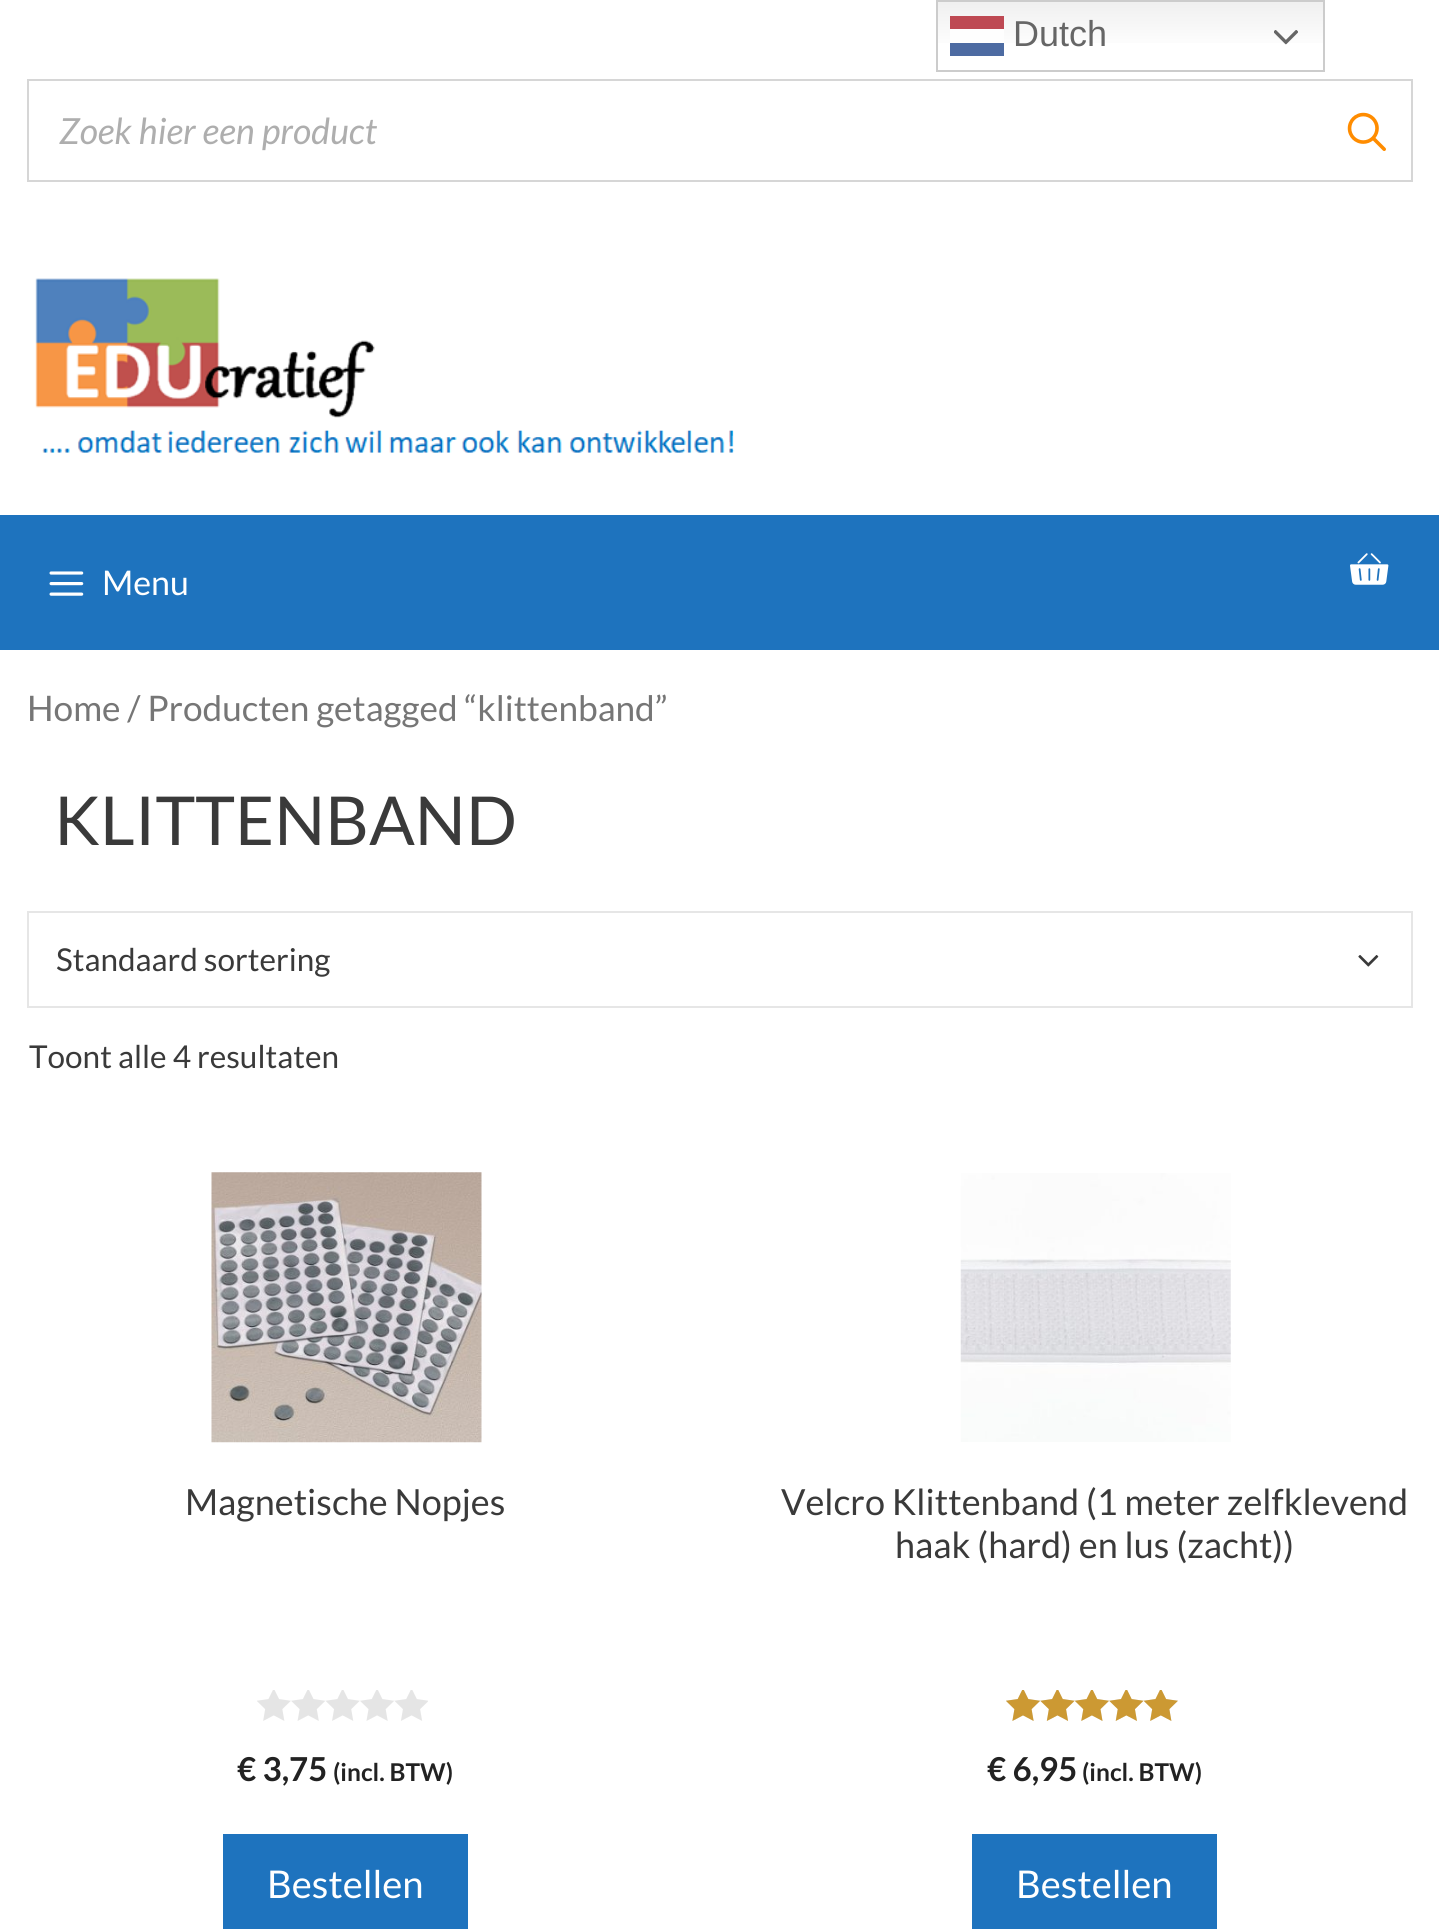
import math
import cairo

surface = cairo.ImageSurface(cairo.Format.RGB24, 1439, 1929)
ctx = cairo.Context(surface)
options = cairo.FontOptions()
options.set_hint_metrics(cairo.HintMetrics.OFF)
options.set_hint_style(cairo.HintStyle.NONE)
ctx.set_font_options(options)
ctx.set_miter_limit(4)


def ink(r, g, b):
    ctx.set_source_rgb(r / 255, g / 255, b / 255)


def write(x, y, s, family, size, color, bold=False, italic=False):
    ctx.select_font_face(family, cairo.FontSlant.ITALIC if italic else cairo.FontSlant.NORMAL, cairo.FontWeight.BOLD if bold else cairo.FontWeight.NORMAL)
    ctx.set_font_size(size)
    ink(*color)
    ctx.move_to(x, y)
    ctx.show_text(s)


def block(x, y, w, h, *color):
    ink(*color)
    ctx.rectangle(x, y, w, h)
    ctx.fill()


def paste(path, x, y, w, h):
    ctx.save()
    ctx.set_source_surface(cairo.ImageSurface.create_from_png(path), x, y)
    ctx.rectangle(x, y, w, h)
    ctx.fill()
    ctx.restore()


s1 = dict(family="Liberation Sans", size=36, color=(102, 102, 102))
s2 = dict(family="Lato", size=36, color=(174, 174, 174), italic=True)
s3 = dict(family="Lato", size=34, color=(255, 255, 255))
s4 = dict(family="Lato", size=35.2, color=(118, 118, 118))
s5 = dict(family="Lato", size=67.5, color=(58, 58, 58))
s6 = dict(family="Lato", size=31.5, color=(58, 58, 58))
s7 = dict(family="Lato", size=36, color=(58, 58, 58))
s8 = dict(family="Lato", size=33, color=(34, 34, 34), bold=True)
s9 = dict(family="Lato", size=24.5, color=(34, 34, 34), bold=True)
s10 = dict(family="Lato", size=38.25, color=(255, 255, 255))

ink(255, 255, 255)
ctx.paint()
gradient = cairo.LinearGradient(1131, 0, 1131, 72)
gradient.add_color_stop_rgba(0, 0.937, 0.937, 0.937, 1)
gradient.add_color_stop_rgba(0.7, 1, 1, 1, 1)
ctx.set_source(gradient)
ctx.rectangle(938, 2, 385, 41)
ctx.fill()
gradient = cairo.LinearGradient(1131, 0, 1131, 72)
gradient.add_color_stop_rgba(0, 0.988, 0.988, 0.988, 1)
gradient.add_color_stop_rgba(0.7, 1, 1, 1, 1)
ctx.set_source(gradient)
ctx.rectangle(950, 29, 54, 14)
ctx.fill()
ctx.rectangle(937, 1, 387, 70)
ink(204, 204, 204)
ctx.stroke()
block(950, 16, 54, 13, 190, 73, 83)
write(1013, 46, "Dutch", **s1)
paste("pic1.png", 1274, 30, 24, 15)
block(950, 43, 54, 13, 77, 107, 162)
ctx.rectangle(28, 80, 1384, 101)
ink(214, 214, 214)
ctx.stroke()
write(59, 144, "Zoek hier een product", **s2)
paste("pic2.png", 1347, 112, 39, 39)
paste("pic3.png", 35, 278, 700, 175)
block(0, 515, 1439, 135, 30, 115, 190)
paste("pic4.png", 49, 571, 35, 25)
write(102, 595, "Menu", **s3)
paste("pic5.png", 1350, 553, 39, 32)
write(27, 721, "Home / Producten getagged “klittenband”", **s4)
write(54, 845, "KLITTENBAND", **s5)
ctx.rectangle(28, 912, 1384, 95)
ink(230, 230, 230)
ctx.stroke()
write(56, 971, "Standaard sortering", **s6)
paste("pic6.png", 1358, 955, 21, 12)
write(29, 1068, "Toont alle 4 resultaten", **s6)
paste("pic7.png", 211, 1172, 271, 271)
write(185, 1515, "Magnetische Nopjes", **s7)
paste("pic8.png", 257, 1690, 171, 31)
write(237, 1781, "€ 3,75", **s8)
write(333, 1781, "(incl. BTW)", **s9)
block(223, 1834, 245, 95, 30, 115, 190)
write(267, 1898, "Bestellen", **s10)
paste("pic9.png", 960, 1173, 271, 269)
write(781, 1515, "Velcro Klittenband (1 meter zelfklevend", **s7)
write(895, 1558, "haak (hard) en lus (zacht))", **s7)
paste("pic10.png", 1006, 1690, 172, 31)
paste("pic11.png", 1006, 1690, 172, 31)
write(987, 1781, "€ 6,95", **s8)
write(1082, 1781, "(incl. BTW)", **s9)
block(972, 1834, 245, 95, 30, 115, 190)
write(1016, 1898, "Bestellen", **s10)
surface.write_to_png("screenshot.png")
